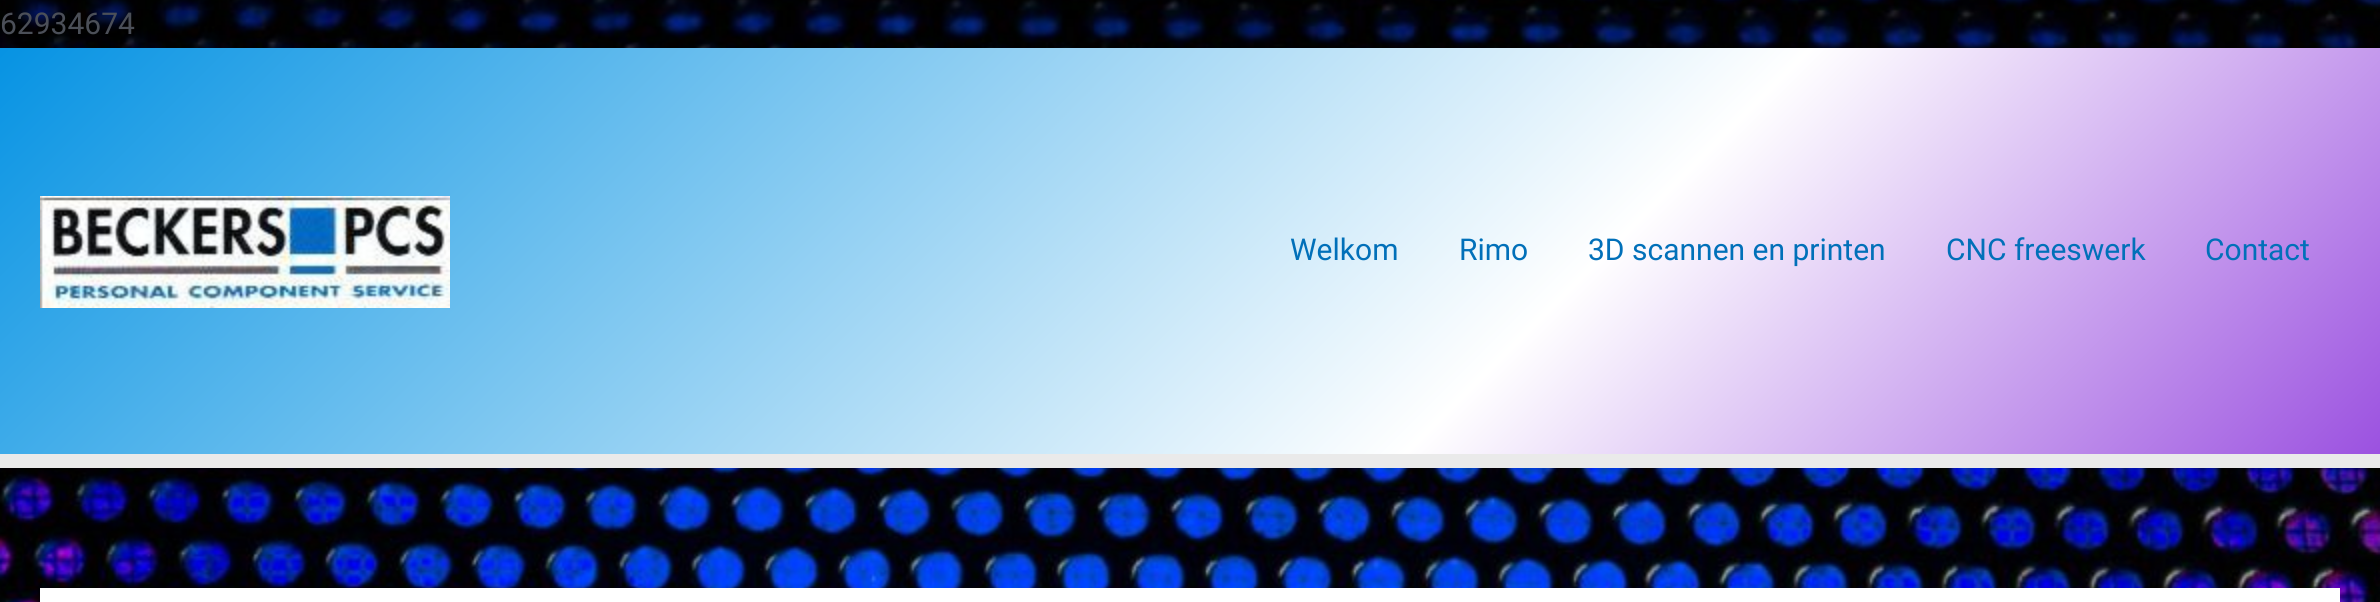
import math
import cairo

surface = cairo.ImageSurface(cairo.Format.RGB24, 2380, 602)
ctx = cairo.Context(surface)
options = cairo.FontOptions()
options.set_hint_metrics(cairo.HintMetrics.OFF)
options.set_hint_style(cairo.HintStyle.NONE)
ctx.set_font_options(options)
ctx.set_miter_limit(4)


def ink(r, g, b):
    ctx.set_source_rgb(r / 255, g / 255, b / 255)


def write(x, y, s, family, size, color, bold=False, italic=False):
    ctx.select_font_face(family, cairo.FontSlant.ITALIC if italic else cairo.FontSlant.NORMAL, cairo.FontWeight.BOLD if bold else cairo.FontWeight.NORMAL)
    ctx.set_font_size(size)
    ink(*color)
    ctx.move_to(x, y)
    ctx.show_text(s)


def block(x, y, w, h, *color):
    ink(*color)
    ctx.rectangle(x, y, w, h)
    ctx.fill()


def paste(path, x, y, w, h):
    ctx.save()
    ctx.set_source_surface(cairo.ImageSurface.create_from_png(path), x, y)
    ctx.rectangle(x, y, w, h)
    ctx.fill()
    ctx.restore()


s1 = dict(family="Roboto", size=30, color=(75, 79, 88))
s2 = dict(family="Roboto", size=30, color=(1, 112, 185))

ink(255, 255, 255)
ctx.paint()
paste("pic1.png", 0, 0, 2380, 602)
write(0, 34, "62934674", **s1)
gradient = cairo.LinearGradient(493, -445, 1887, 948)
gradient.add_color_stop_rgba(0, 0.024, 0.576, 0.89, 1)
gradient.add_color_stop_rgba(0.65, 1, 1, 1, 1)
gradient.add_color_stop_rgba(1, 0.608, 0.318, 0.878, 1)
ctx.set_source(gradient)
ctx.rectangle(0, 48, 2380, 406)
ctx.fill()
block(0, 454, 2380, 14, 234, 234, 234)
paste("pic2.png", 40, 196, 410, 112)
write(1290, 260, "Welkom", **s2)
write(1459, 260, "Rimo", **s2)
write(1588, 260, "3D scannen en printen", **s2)
write(1946, 260, "CNC freeswerk", **s2)
write(2205, 260, "Contact", **s2)
block(40, 588, 2300, 14, 255, 255, 255)
surface.write_to_png("screenshot.png")
